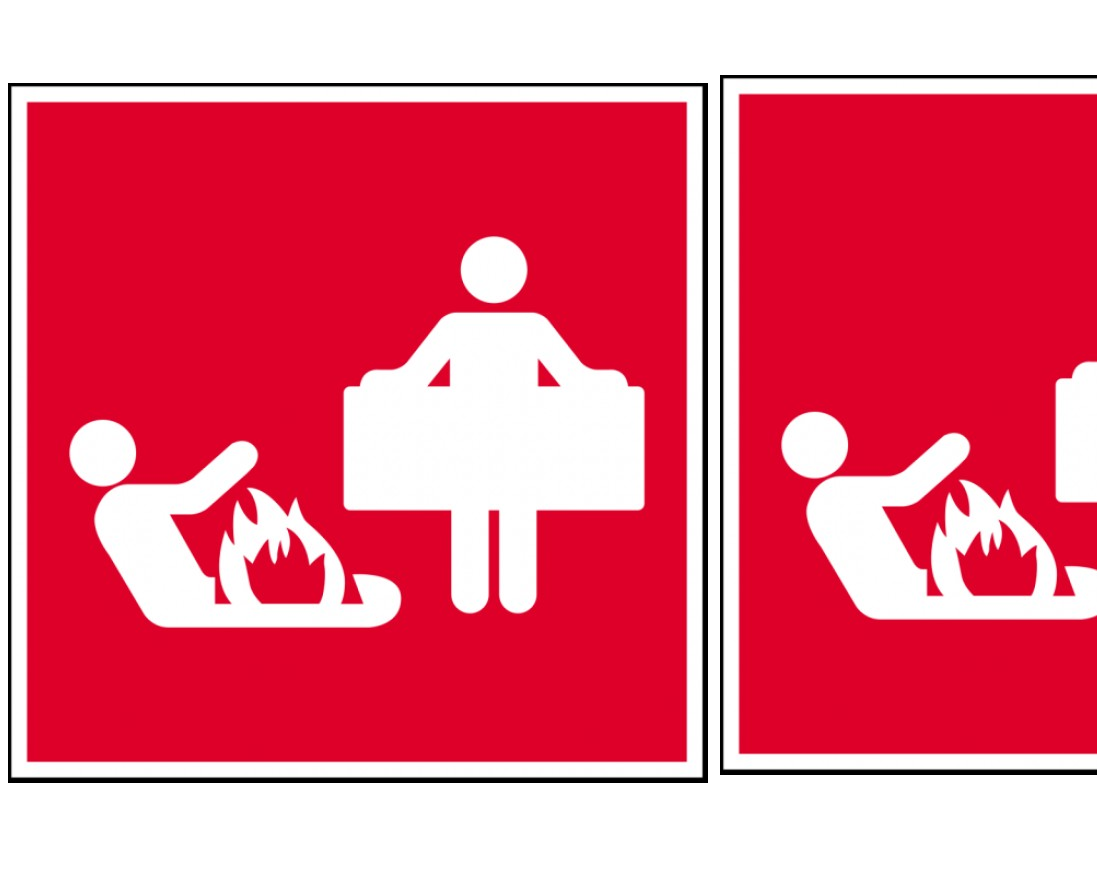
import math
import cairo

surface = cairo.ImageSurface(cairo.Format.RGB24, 1097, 895)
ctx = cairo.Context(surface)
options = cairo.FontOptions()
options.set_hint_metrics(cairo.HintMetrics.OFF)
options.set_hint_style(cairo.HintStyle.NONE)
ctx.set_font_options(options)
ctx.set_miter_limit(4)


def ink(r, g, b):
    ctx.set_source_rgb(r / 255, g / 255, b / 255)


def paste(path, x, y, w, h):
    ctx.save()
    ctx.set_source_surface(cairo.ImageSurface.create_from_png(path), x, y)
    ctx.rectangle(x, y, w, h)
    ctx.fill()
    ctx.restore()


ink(255, 255, 255)
ctx.paint()
paste("pic1.png", 8, 80, 700, 703)
paste("pic2.png", 720, 72, 377, 703)
surface.write_to_png("screenshot.png")
